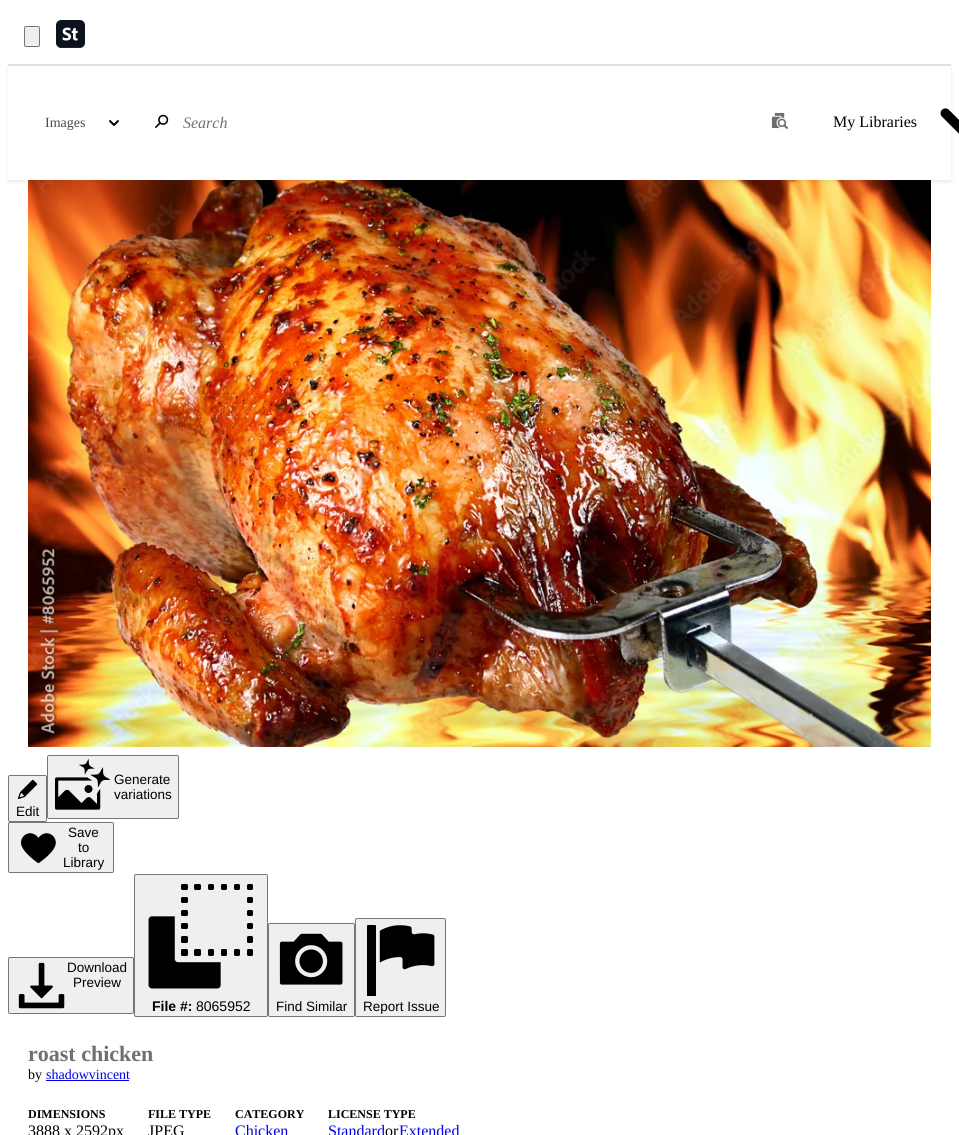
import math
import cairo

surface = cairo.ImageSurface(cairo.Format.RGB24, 959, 1135)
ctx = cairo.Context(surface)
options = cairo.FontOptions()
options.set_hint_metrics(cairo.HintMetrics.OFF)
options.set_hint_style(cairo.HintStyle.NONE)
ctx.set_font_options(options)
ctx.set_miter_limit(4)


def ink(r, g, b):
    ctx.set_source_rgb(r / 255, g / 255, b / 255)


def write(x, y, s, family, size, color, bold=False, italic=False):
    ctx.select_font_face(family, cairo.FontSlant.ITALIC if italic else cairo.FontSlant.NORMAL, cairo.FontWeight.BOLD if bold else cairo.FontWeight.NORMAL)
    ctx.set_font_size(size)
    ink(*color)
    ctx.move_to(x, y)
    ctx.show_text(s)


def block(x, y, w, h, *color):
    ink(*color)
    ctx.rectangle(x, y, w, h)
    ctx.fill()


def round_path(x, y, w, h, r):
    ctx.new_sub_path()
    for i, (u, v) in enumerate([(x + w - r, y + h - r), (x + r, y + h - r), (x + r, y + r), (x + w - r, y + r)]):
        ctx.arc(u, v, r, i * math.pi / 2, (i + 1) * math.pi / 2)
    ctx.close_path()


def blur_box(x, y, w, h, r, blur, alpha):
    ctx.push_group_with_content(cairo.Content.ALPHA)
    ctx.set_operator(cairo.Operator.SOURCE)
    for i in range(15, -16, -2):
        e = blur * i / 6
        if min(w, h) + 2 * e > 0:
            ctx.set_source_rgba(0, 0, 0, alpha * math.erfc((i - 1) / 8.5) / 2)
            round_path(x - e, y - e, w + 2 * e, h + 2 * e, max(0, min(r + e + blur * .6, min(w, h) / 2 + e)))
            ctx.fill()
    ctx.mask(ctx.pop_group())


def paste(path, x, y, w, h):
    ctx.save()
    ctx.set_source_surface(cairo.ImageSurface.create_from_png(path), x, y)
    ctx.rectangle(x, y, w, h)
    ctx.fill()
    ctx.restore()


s1 = dict(family="Liberation Serif", size=14, color=(75, 75, 75))
s2 = dict(family="Liberation Serif", size=16, color=(112, 112, 112), italic=True)
s3 = dict(family="Liberation Serif", size=16, color=(0, 0, 0))
s4 = dict(family="Liberation Sans", size=13.5, color=(0, 0, 0))
s5 = dict(family="Liberation Sans", size=14, color=(0, 0, 0), bold=True)
s6 = dict(family="Liberation Sans", size=14, color=(0, 0, 0))
s7 = dict(family="Liberation Serif", size=22, color=(112, 112, 112), bold=True)
s8 = dict(family="Liberation Serif", size=14, color=(0, 0, 0))
s9 = dict(family="Liberation Serif", size=14, color=(0, 0, 238))
s10 = dict(family="Liberation Serif", size=12, color=(0, 0, 0), bold=True)
s11 = dict(family="Liberation Serif", size=16, color=(0, 0, 238))

ink(255, 255, 255)
ctx.paint()
paste("pic6.png", 28, 180, 903, 567)
ink(52, 52, 52)
blur_box(8, 68, 943, 114, 0, 2, 0.1)
block(8, 64, 943, 2, 225, 225, 225)
ink(239, 239, 239)
round_path(24.5, 26.5, 15, 20, 1.5)
ctx.fill_preserve()
ink(118, 118, 118)
ctx.set_line_width(1)
ctx.stroke()
paste("pic1.png", 56, 20, 29, 28)
block(8, 66, 943, 114, 255, 255, 255)
write(45, 127, "Images", **s1)
paste("pic2.png", 109, 120, 10, 6)
paste("pic3.png", 155, 114, 14, 14)
write(183, 128, "Search", **s2)
paste("pic4.png", 771, 112, 17, 17)
write(833, 127, "My Libraries", **s3)
paste("pic5.png", 940, 108, 19, 26)
ink(239, 239, 239)
round_path(47.5, 755.5, 131, 63, 1.5)
ctx.fill_preserve()
ink(118, 118, 118)
ctx.stroke()
paste("pic7.png", 55, 758, 56, 52)
write(114, 784, "Generate", **s4)
write(114, 799, "variations", **s4)
ink(239, 239, 239)
round_path(8.5, 775.5, 38, 46, 1.5)
ctx.fill_preserve()
ink(118, 118, 118)
ctx.stroke()
paste("pic8.png", 17, 779, 21, 20)
write(16, 816, "Edit", **s4)
ink(239, 239, 239)
round_path(8.5, 822.5, 105, 50, 1.5)
ctx.fill_preserve()
ink(118, 118, 118)
ctx.stroke()
paste("pic9.png", 21, 833, 35, 31)
write(68, 837, "Save", **s4)
write(78, 852, "to", **s4)
write(63, 867, "Library", **s4)
ink(239, 239, 239)
round_path(8.5, 957.5, 125, 56, 1.5)
ctx.fill_preserve()
ink(118, 118, 118)
ctx.stroke()
paste("pic10.png", 18, 962, 47, 47)
write(67, 972, "Download", **s4)
write(73, 987, "Preview", **s4)
ink(239, 239, 239)
round_path(134.5, 874.5, 133, 142, 1.5)
ctx.fill_preserve()
ink(118, 118, 118)
ctx.stroke()
paste("pic11.png", 148, 884, 105, 105)
write(152, 1011, "File #:", **s5)
write(196, 1011, "8065952", **s6)
ink(239, 239, 239)
round_path(268.5, 923.5, 86, 93, 1.5)
ctx.fill_preserve()
ink(118, 118, 118)
ctx.stroke()
paste("pic12.png", 279, 933, 64, 52)
write(276, 1011, "Find Similar", **s4)
ink(239, 239, 239)
round_path(355.5, 918.5, 90, 98, 1.5)
ctx.fill_preserve()
ink(118, 118, 118)
ctx.stroke()
paste("pic13.png", 367, 925, 68, 71)
write(363, 1011, "Report Issue", **s4)
write(28, 1061, "roast chicken", **s7)
write(28, 1079, "by", **s8)
write(46, 1079, "shadowvincent", **s9)
block(46, 1080, 83, 1, 0, 0, 238)
write(28, 1118, "DIMENSIONS", **s10)
write(28, 1136, "3888 x 2592px", **s3)
write(148, 1118, "FILE TYPE", **s10)
write(148, 1136, "JPEG", **s3)
write(235, 1118, "CATEGORY", **s10)
write(235, 1136, "Chicken", **s11)
write(328, 1118, "LICENSE TYPE", **s10)
write(328, 1136, "Standard", **s11)
write(385, 1136, "or", **s3)
write(399, 1136, "Extended", **s11)
surface.write_to_png("screenshot.png")
